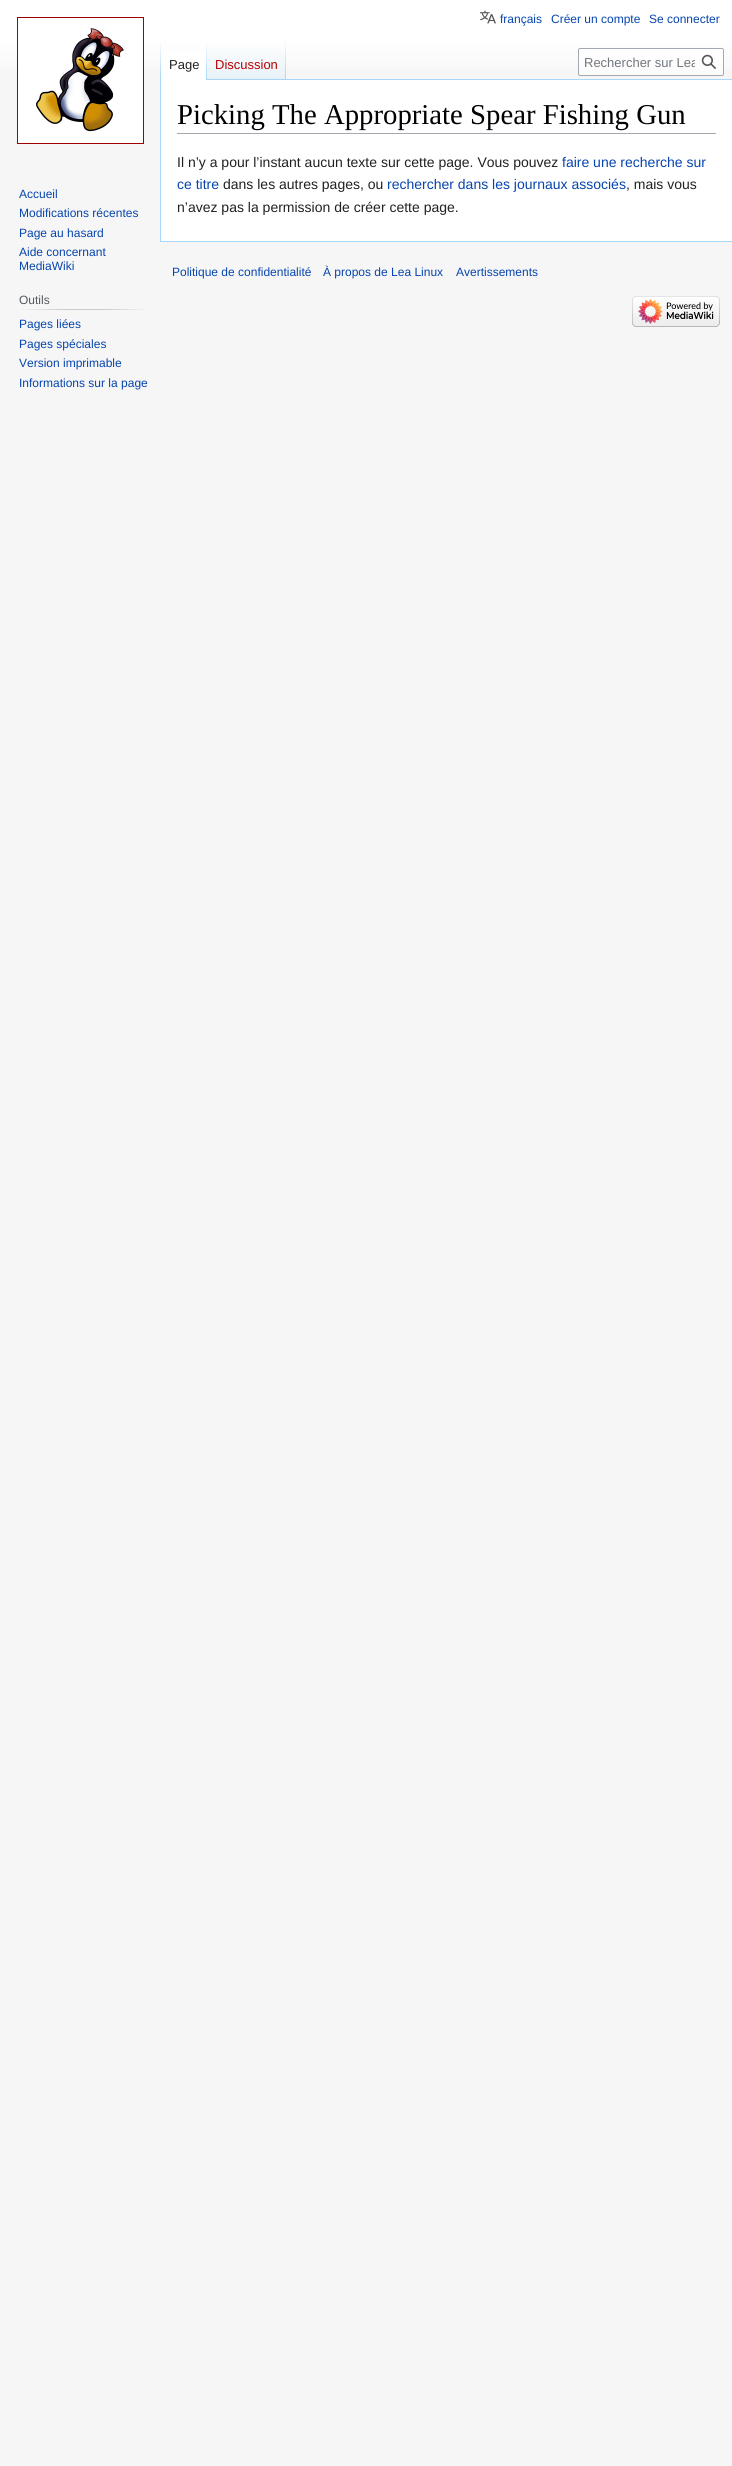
import math
import cairo

surface = cairo.ImageSurface(cairo.Format.RGB24, 732, 2466)
ctx = cairo.Context(surface)
options = cairo.FontOptions()
options.set_hint_metrics(cairo.HintMetrics.OFF)
options.set_hint_style(cairo.HintStyle.NONE)
ctx.set_font_options(options)
ctx.set_miter_limit(4)


def ink(r, g, b):
    ctx.set_source_rgb(r / 255, g / 255, b / 255)


def write(x, y, s, family, size, color, bold=False, italic=False):
    ctx.select_font_face(family, cairo.FontSlant.ITALIC if italic else cairo.FontSlant.NORMAL, cairo.FontWeight.BOLD if bold else cairo.FontWeight.NORMAL)
    ctx.set_font_size(size)
    ink(*color)
    ctx.move_to(x, y)
    ctx.show_text(s)


def block(x, y, w, h, *color):
    ink(*color)
    ctx.rectangle(x, y, w, h)
    ctx.fill()


def round_path(x, y, w, h, r):
    ctx.new_sub_path()
    for i, (u, v) in enumerate([(x + w - r, y + h - r), (x + r, y + h - r), (x + r, y + r), (x + w - r, y + r)]):
        ctx.arc(u, v, r, i * math.pi / 2, (i + 1) * math.pi / 2)
    ctx.close_path()


def paste(path, x, y, w, h):
    ctx.save()
    ctx.set_source_surface(cairo.ImageSurface.create_from_png(path), x, y)
    ctx.rectangle(x, y, w, h)
    ctx.fill()
    ctx.restore()


s1 = dict(family="Liberation Sans", size=12, color=(6, 69, 173))
s2 = dict(family="Liberation Sans", size=13, color=(32, 33, 34))
s3 = dict(family="Liberation Sans", size=13, color=(186, 0, 0))
s4 = dict(family="Liberation Sans", size=13, color=(114, 119, 125))
s5 = dict(family="Liberation Sans", size=12, color=(84, 89, 93))
s6 = dict(family="Liberation Serif", size=28.75, color=(0, 0, 0))
s7 = dict(family="Liberation Sans", size=14, color=(32, 33, 34))
s8 = dict(family="Liberation Sans", size=14, color=(6, 69, 173))

ink(246, 246, 246)
ctx.paint()
gradient = cairo.LinearGradient(366, 0, 366, 80)
gradient.add_color_stop_rgba(0.5, 1, 1, 1, 1)
gradient.add_color_stop_rgba(1, 0.965, 0.965, 0.965, 1)
ctx.set_source(gradient)
ctx.rectangle(0, 0, 732, 69)
ctx.fill()
paste("pic1.png", 480, 10, 16, 14)
write(500, 23, "français", **s1)
write(551, 23, "Créer un compte", **s1)
write(649, 23, "Se connecter", **s1)
block(160, 241, 572, 1, 167, 215, 249)
block(160, 79, 1, 163, 167, 215, 249)
gradient = cairo.LinearGradient(161, 40, 161, 80)
gradient.add_color_stop_rgba(0, 0.655, 0.843, 0.976, 0)
gradient.add_color_stop_rgba(1, 0.655, 0.843, 0.976, 1)
ctx.set_source(gradient)
ctx.rectangle(160, 40, 1, 40)
ctx.fill()
block(161, 51, 45, 29, 255, 255, 255)
gradient = cairo.LinearGradient(207, 40, 207, 80)
gradient.add_color_stop_rgba(0, 1, 1, 1, 1)
gradient.add_color_stop_rgba(1, 0.655, 0.843, 0.976, 1)
ctx.set_source(gradient)
ctx.rectangle(206, 40, 1, 40)
ctx.fill()
write(169, 69, "Page", **s2)
gradient = cairo.LinearGradient(247, 80, 247, 40)
gradient.add_color_stop_rgba(0, 0.467, 0.757, 0.965, 1)
gradient.add_color_stop_rgba(0.03, 0.91, 0.949, 0.973, 1)
gradient.add_color_stop_rgba(1, 1, 1, 1, 1)
ctx.set_source(gradient)
ctx.rectangle(207, 46, 79, 34)
ctx.fill()
gradient = cairo.LinearGradient(286, 40, 286, 80)
gradient.add_color_stop_rgba(0, 0.655, 0.843, 0.976, 0)
gradient.add_color_stop_rgba(1, 0.655, 0.843, 0.976, 1)
ctx.set_source(gradient)
ctx.rectangle(285, 40, 1, 40)
ctx.fill()
write(215, 69, "Discussion", **s3)
ctx.set_source_rgba(1, 1, 1, 0.5)
round_path(578.5, 48.5, 145, 27, 1.5)
ctx.fill_preserve()
ink(162, 169, 177)
ctx.set_line_width(1)
ctx.stroke()
ctx.save()
ctx.rectangle(584, 55, 111, 15)
ctx.clip()
write(584, 67, "Rechercher sur Lea", **s4)
ctx.restore()
paste("pic2.png", 701, 54, 15, 15)
paste("pic3.png", 17, 17, 127, 127)
write(19, 198, "Accueil", **s1)
write(19, 217, "Modifications récentes", **s1)
write(19, 237, "Page au hasard", **s1)
write(19, 256, "Aide concernant", **s1)
write(19, 270, "MediaWiki", **s1)
gradient = cairo.LinearGradient(19, 310, 150, 310)
gradient.add_color_stop_rgba(0, 0.965, 0.965, 0.965, 1)
gradient.add_color_stop_rgba(0.33, 0.784, 0.8, 0.82, 1)
gradient.add_color_stop_rgba(0.66, 0.784, 0.8, 0.82, 1)
gradient.add_color_stop_rgba(1, 0.965, 0.965, 0.965, 1)
ctx.set_source(gradient)
ctx.rectangle(19, 309, 131, 1)
ctx.fill()
write(19, 304, "Outils", **s5)
write(19, 328, "Pages liées", **s1)
write(19, 348, "Pages spéciales", **s1)
write(19, 367, "Version imprimable", **s1)
write(19, 387, "Informations sur la page", **s1)
block(161, 80, 571, 161, 255, 255, 255)
block(286, 79, 446, 1, 167, 215, 249)
block(177, 133, 539, 1, 162, 169, 177)
write(177, 124, "Picking The Appropriate Spear Fishing Gun", **s6)
write(177, 167, "Il n’y a pour l’instant aucun texte sur cette page. Vous pouvez", **s7)
write(562, 167, "faire une recherche sur", **s8)
write(177, 189, "ce titre", **s8)
write(223, 189, "dans les autres pages, ou", **s7)
write(387, 189, "rechercher dans les journaux associés", **s8)
write(626, 189, ", mais vous", **s7)
write(177, 212, "n’avez pas la permission de créer cette page.", **s7)
write(172, 276, "Politique de confidentialité", **s1)
write(323, 276, "À propos de Lea Linux", **s1)
write(456, 276, "Avertissements", **s1)
paste("pic4.png", 632, 296, 88, 31)
surface.write_to_png("screenshot.png")
